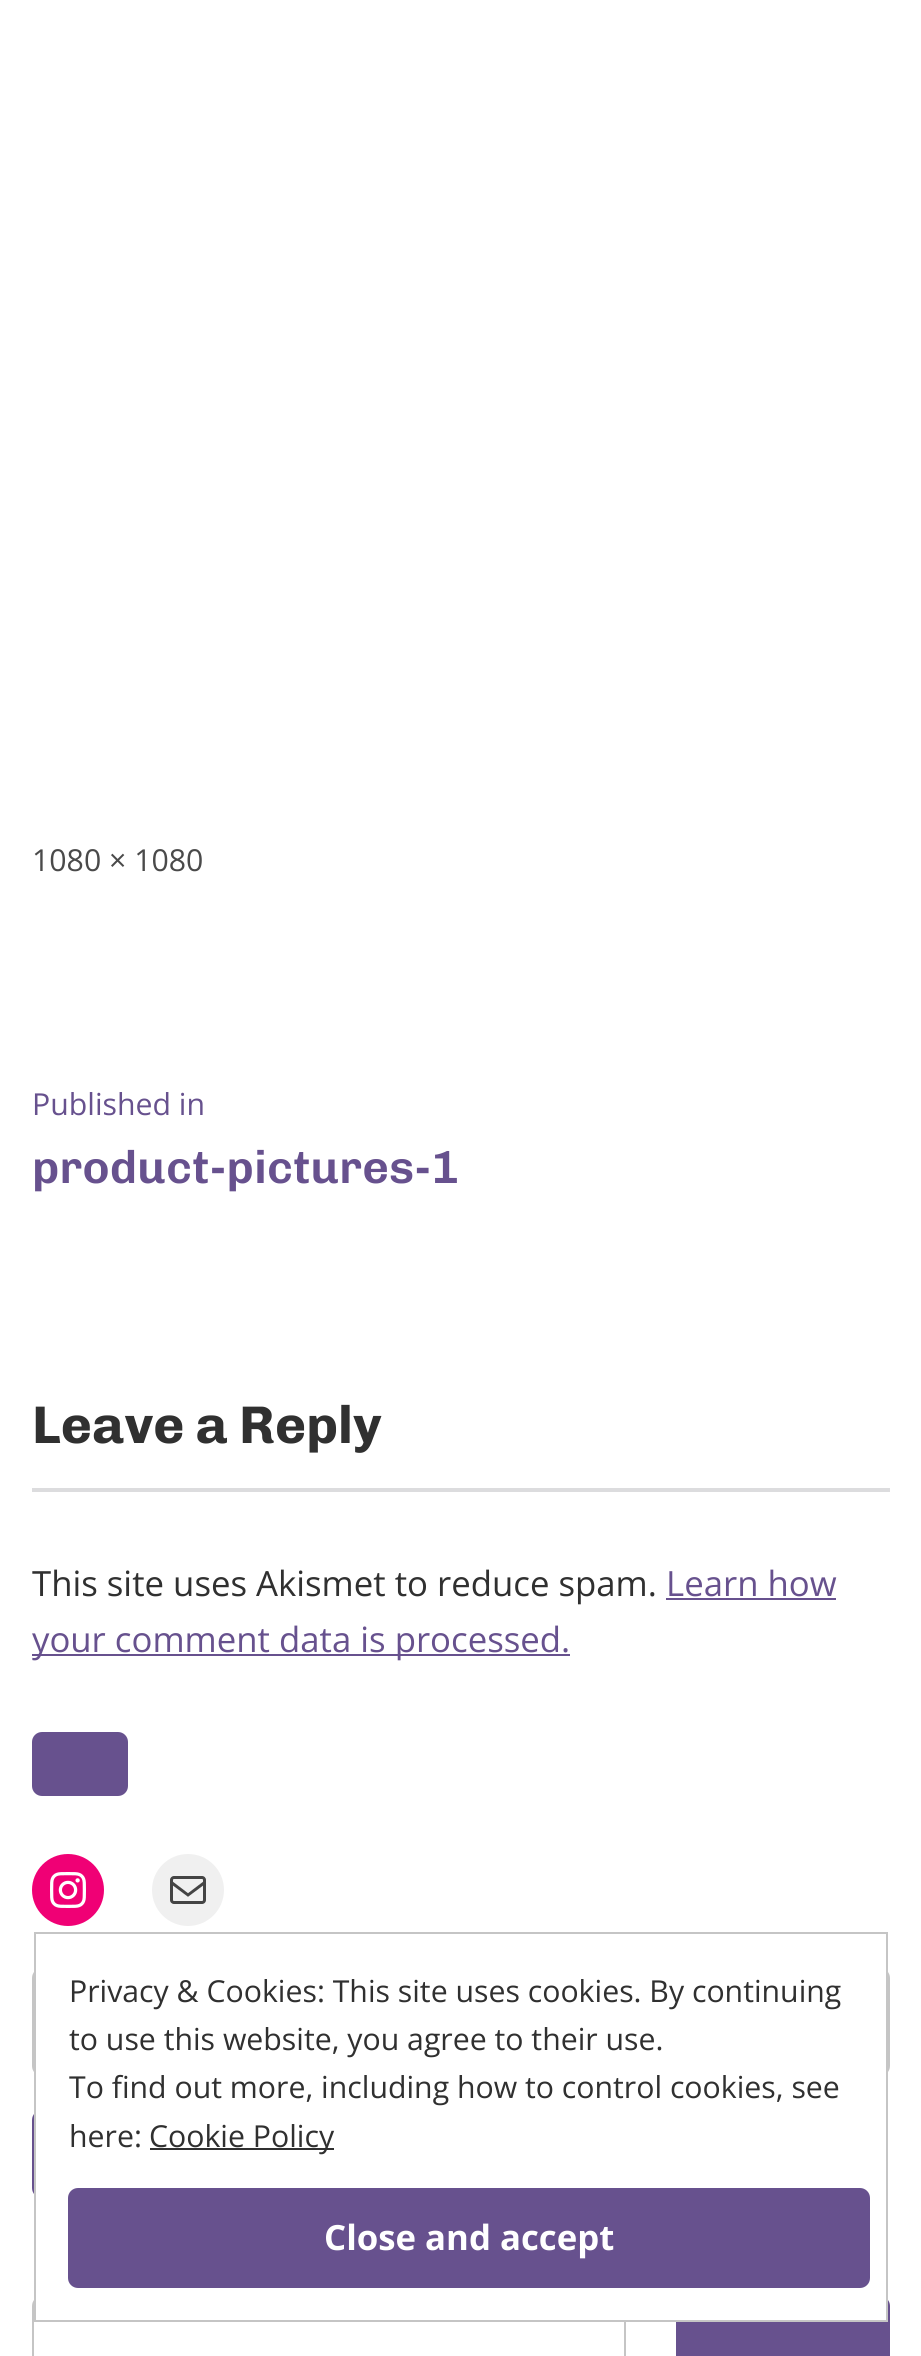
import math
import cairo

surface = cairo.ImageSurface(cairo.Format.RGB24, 921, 2356)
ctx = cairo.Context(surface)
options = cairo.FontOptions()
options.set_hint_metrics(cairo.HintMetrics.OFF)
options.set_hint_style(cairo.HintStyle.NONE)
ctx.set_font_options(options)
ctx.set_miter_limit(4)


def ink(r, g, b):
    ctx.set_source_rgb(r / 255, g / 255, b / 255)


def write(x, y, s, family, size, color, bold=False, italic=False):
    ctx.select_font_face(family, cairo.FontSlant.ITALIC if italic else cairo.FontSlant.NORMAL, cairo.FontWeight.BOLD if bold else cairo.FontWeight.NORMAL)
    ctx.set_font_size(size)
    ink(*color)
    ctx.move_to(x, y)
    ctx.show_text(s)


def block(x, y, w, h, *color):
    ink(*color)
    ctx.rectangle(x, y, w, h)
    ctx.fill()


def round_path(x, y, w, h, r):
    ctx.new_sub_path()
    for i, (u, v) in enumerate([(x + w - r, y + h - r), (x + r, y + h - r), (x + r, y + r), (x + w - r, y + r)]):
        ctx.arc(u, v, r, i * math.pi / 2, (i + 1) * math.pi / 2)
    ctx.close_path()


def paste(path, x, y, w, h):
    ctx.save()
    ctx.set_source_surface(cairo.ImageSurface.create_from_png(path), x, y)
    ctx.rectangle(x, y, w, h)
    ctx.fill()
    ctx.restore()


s1 = dict(family="Open Sans", size=30.25, color=(74, 74, 74))
s2 = dict(family="Open Sans", size=30.25, color=(103, 81, 142))
s3 = dict(family="Chivo SemiBold", size=46, color=(103, 81, 142))
s4 = dict(family="Chivo", size=53, color=(48, 48, 48), bold=True)
s5 = dict(family="Open Sans", size=34.75, color=(48, 48, 48))
s6 = dict(family="Open Sans", size=34.75, color=(103, 81, 142))
s7 = dict(family="Open Sans", size=30.25, color=(48, 48, 48))
s8 = dict(family="Open Sans", size=34.75, color=(255, 255, 255), bold=True)

ink(255, 255, 255)
ctx.paint()
write(32, 871, "1080 × 1080", **s1)
write(32, 1115, "Published in", **s2)
write(32, 1183, "product-pictures-1", **s3)
write(32, 1443, "Leave a Reply", **s4)
block(32, 1488, 858, 4, 220, 220, 222)
write(32, 1596, "This site uses Akismet to reduce spam.", **s5)
write(666, 1596, "Learn how", **s6)
block(666, 1598, 170, 2, 103, 81, 142)
block(32, 1654, 538, 2, 103, 81, 142)
write(32, 1652, "your comment data is processed.", **s6)
round_path(32, 1732, 96, 64, 10)
ctx.fill()
ink(240, 0, 117)
ctx.arc(68, 1890, 36, 0, 2 * math.pi)
ctx.fill()
paste("pic1.png", 50, 1872, 36, 36)
ink(240, 240, 240)
ctx.arc(188, 1890, 36, 0, 2 * math.pi)
ctx.fill()
paste("pic2.png", 170, 1876, 36, 28)
round_path(33, 1969, 856, 106, 9)
ink(197, 197, 197)
ctx.stroke()
round_path(33, 2111, 434, 86, 9)
ink(103, 81, 142)
ctx.stroke()
round_path(33, 2297, 592, 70, 9)
ink(197, 197, 197)
ctx.stroke()
ink(103, 81, 142)
round_path(676, 2296, 214, 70, 10)
ctx.fill()
block(36, 1968, 850, 352, 255, 255, 255)
ctx.rectangle(35, 1933, 852, 388)
ink(197, 197, 197)
ctx.stroke()
write(69, 2002, "Privacy & Cookies: This site uses cookies. By continuing", **s7)
write(69, 2050, "to use this website, you agree to their use.", **s7)
write(69, 2098, "To find out more, including how to control cookies, see", **s7)
write(69, 2147, "here:", **s7)
block(150, 2148, 184, 2, 48, 48, 48)
write(149, 2147, "Cookie Policy", **s7)
ink(103, 81, 142)
round_path(68, 2188, 802, 100, 10)
ctx.fill()
write(324, 2250, "Close and accept", **s8)
surface.write_to_png("screenshot.png")
